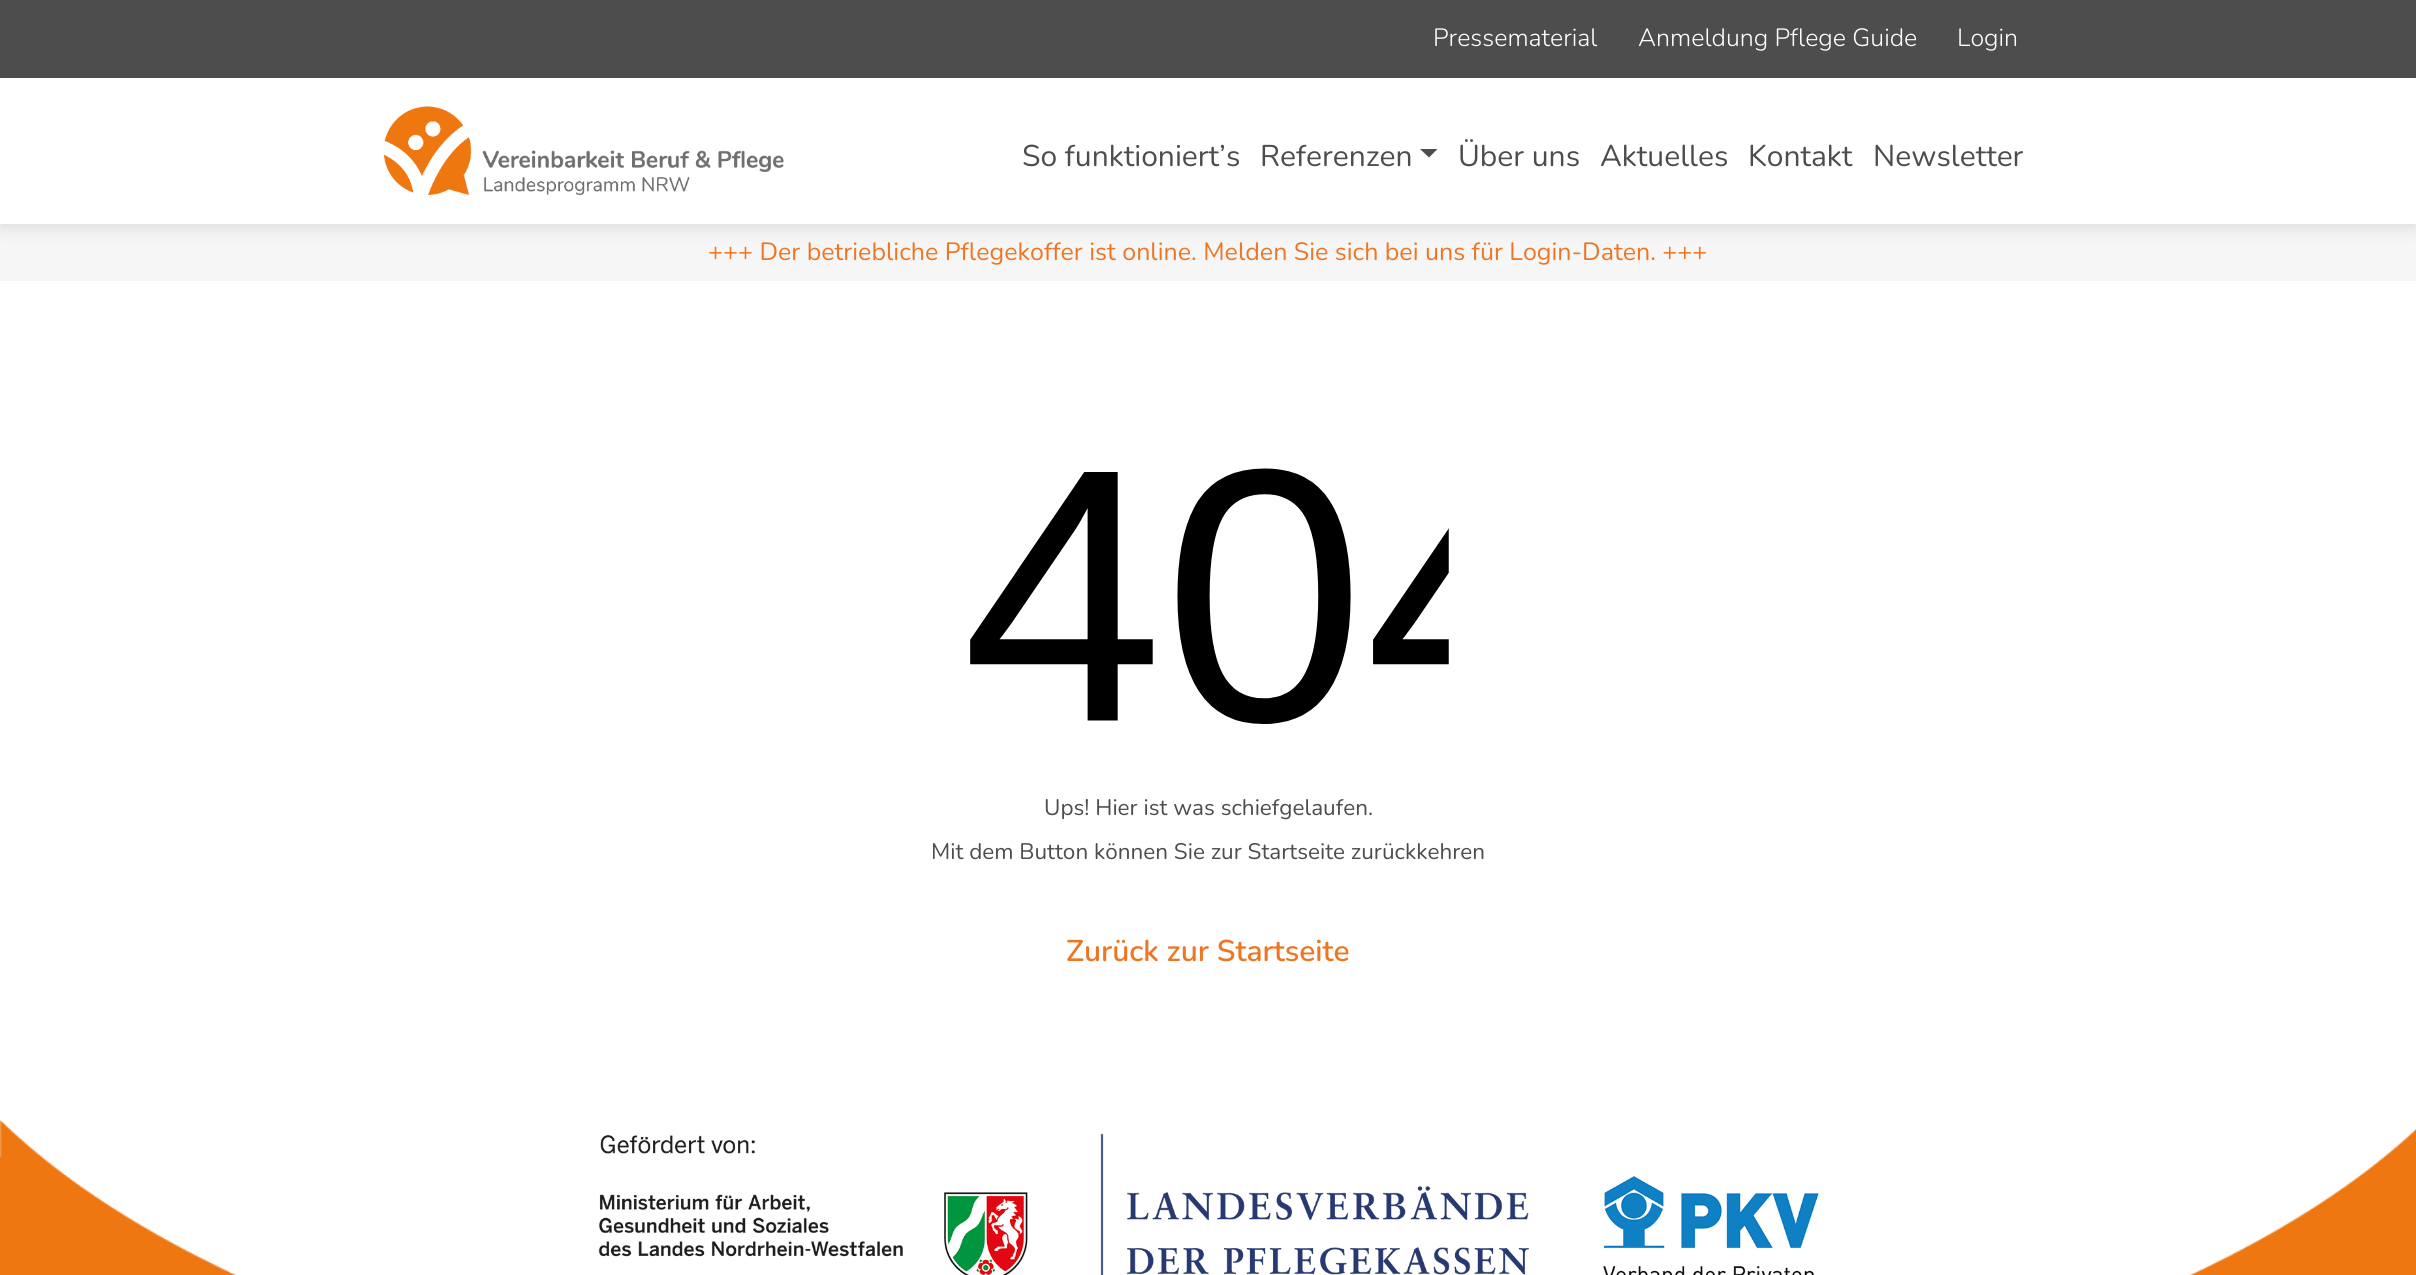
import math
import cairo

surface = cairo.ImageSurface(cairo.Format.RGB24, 2416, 1275)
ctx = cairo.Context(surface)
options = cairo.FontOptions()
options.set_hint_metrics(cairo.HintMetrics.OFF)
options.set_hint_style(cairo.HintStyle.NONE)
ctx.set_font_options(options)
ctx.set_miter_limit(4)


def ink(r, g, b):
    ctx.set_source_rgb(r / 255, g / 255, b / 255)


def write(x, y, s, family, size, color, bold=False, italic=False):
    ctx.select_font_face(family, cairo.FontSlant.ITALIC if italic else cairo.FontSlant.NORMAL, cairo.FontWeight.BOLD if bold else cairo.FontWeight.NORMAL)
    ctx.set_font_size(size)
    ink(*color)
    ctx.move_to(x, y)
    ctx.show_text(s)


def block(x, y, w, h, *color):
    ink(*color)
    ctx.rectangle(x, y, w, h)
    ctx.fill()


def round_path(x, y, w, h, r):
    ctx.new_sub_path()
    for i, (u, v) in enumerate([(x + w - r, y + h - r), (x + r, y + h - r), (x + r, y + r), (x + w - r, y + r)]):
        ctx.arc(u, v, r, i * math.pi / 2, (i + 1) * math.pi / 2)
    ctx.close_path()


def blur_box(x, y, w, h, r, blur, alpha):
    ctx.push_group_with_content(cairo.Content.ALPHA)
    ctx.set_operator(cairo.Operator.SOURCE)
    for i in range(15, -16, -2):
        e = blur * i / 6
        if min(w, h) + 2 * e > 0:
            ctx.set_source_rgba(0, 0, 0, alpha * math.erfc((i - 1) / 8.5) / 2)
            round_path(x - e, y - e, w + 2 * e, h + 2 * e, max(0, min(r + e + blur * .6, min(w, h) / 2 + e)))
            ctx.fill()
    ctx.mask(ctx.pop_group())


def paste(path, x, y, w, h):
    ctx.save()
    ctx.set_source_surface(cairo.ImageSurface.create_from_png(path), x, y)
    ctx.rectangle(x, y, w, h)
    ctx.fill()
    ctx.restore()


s1 = dict(family="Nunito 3 ExtraLight", size=25, color=(255, 255, 255))
s2 = dict(family="Nunito ExtraLight", size=30, color=(77, 77, 77))
s3 = dict(family="Nunito ExtraLight", size=25, color=(238, 118, 35))
s4 = dict(family="Nunito ExtraLight", size=22.5, color=(77, 77, 77))
s5 = dict(family="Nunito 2 ExtraLight", size=30, color=(238, 118, 35))

ink(255, 255, 255)
ctx.paint()
block(0, 224, 2416, 57, 246, 246, 246)
ink(0, 0, 0)
blur_box(0, 83, 2416, 146, 0, 7.5, 0.1)
block(0, 0, 2416, 78, 77, 77, 77)
write(1433, 46, "Pressematerial", **s1)
write(1638, 46, "Anmeldung Pflege Guide", **s1)
write(1957, 46, "Login", **s1)
block(0, 78, 2416, 146, 255, 255, 255)
paste("pic1.png", 383, 106, 401, 89)
write(1022, 166, "So funktioniert’s", **s2)
write(1260, 166, "Referenzen", **s2)
ctx.new_path()
ctx.move_to(1420, 149)
ctx.line_to(1437.5, 149)
ctx.line_to(1429, 157.5)
ctx.close_path()
ctx.fill()
write(1458, 166, "Über uns", **s2)
write(1600, 166, "Aktuelles", **s2)
write(1748, 166, "Kontakt", **s2)
write(1873, 166, "Newsletter", **s2)
write(708, 260, "+++ Der betriebliche Pflegekoffer ist online. Melden Sie sich bei uns für Login-Daten. +++", **s3)
paste("pic2.png", 970, 468, 479, 256)
write(1044, 815, "Ups! Hier ist was schiefgelaufen.", **s4)
write(931, 859, "Mit dem Button können Sie zur Startseite zurückkehren", **s4)
write(1066, 961, "Zurück zur Startseite", **s5)
paste("pic3.png", 0, 1119, 2416, 156)
paste("pic4.png", 598, 1133, 1221, 142)
surface.write_to_png("screenshot.png")
